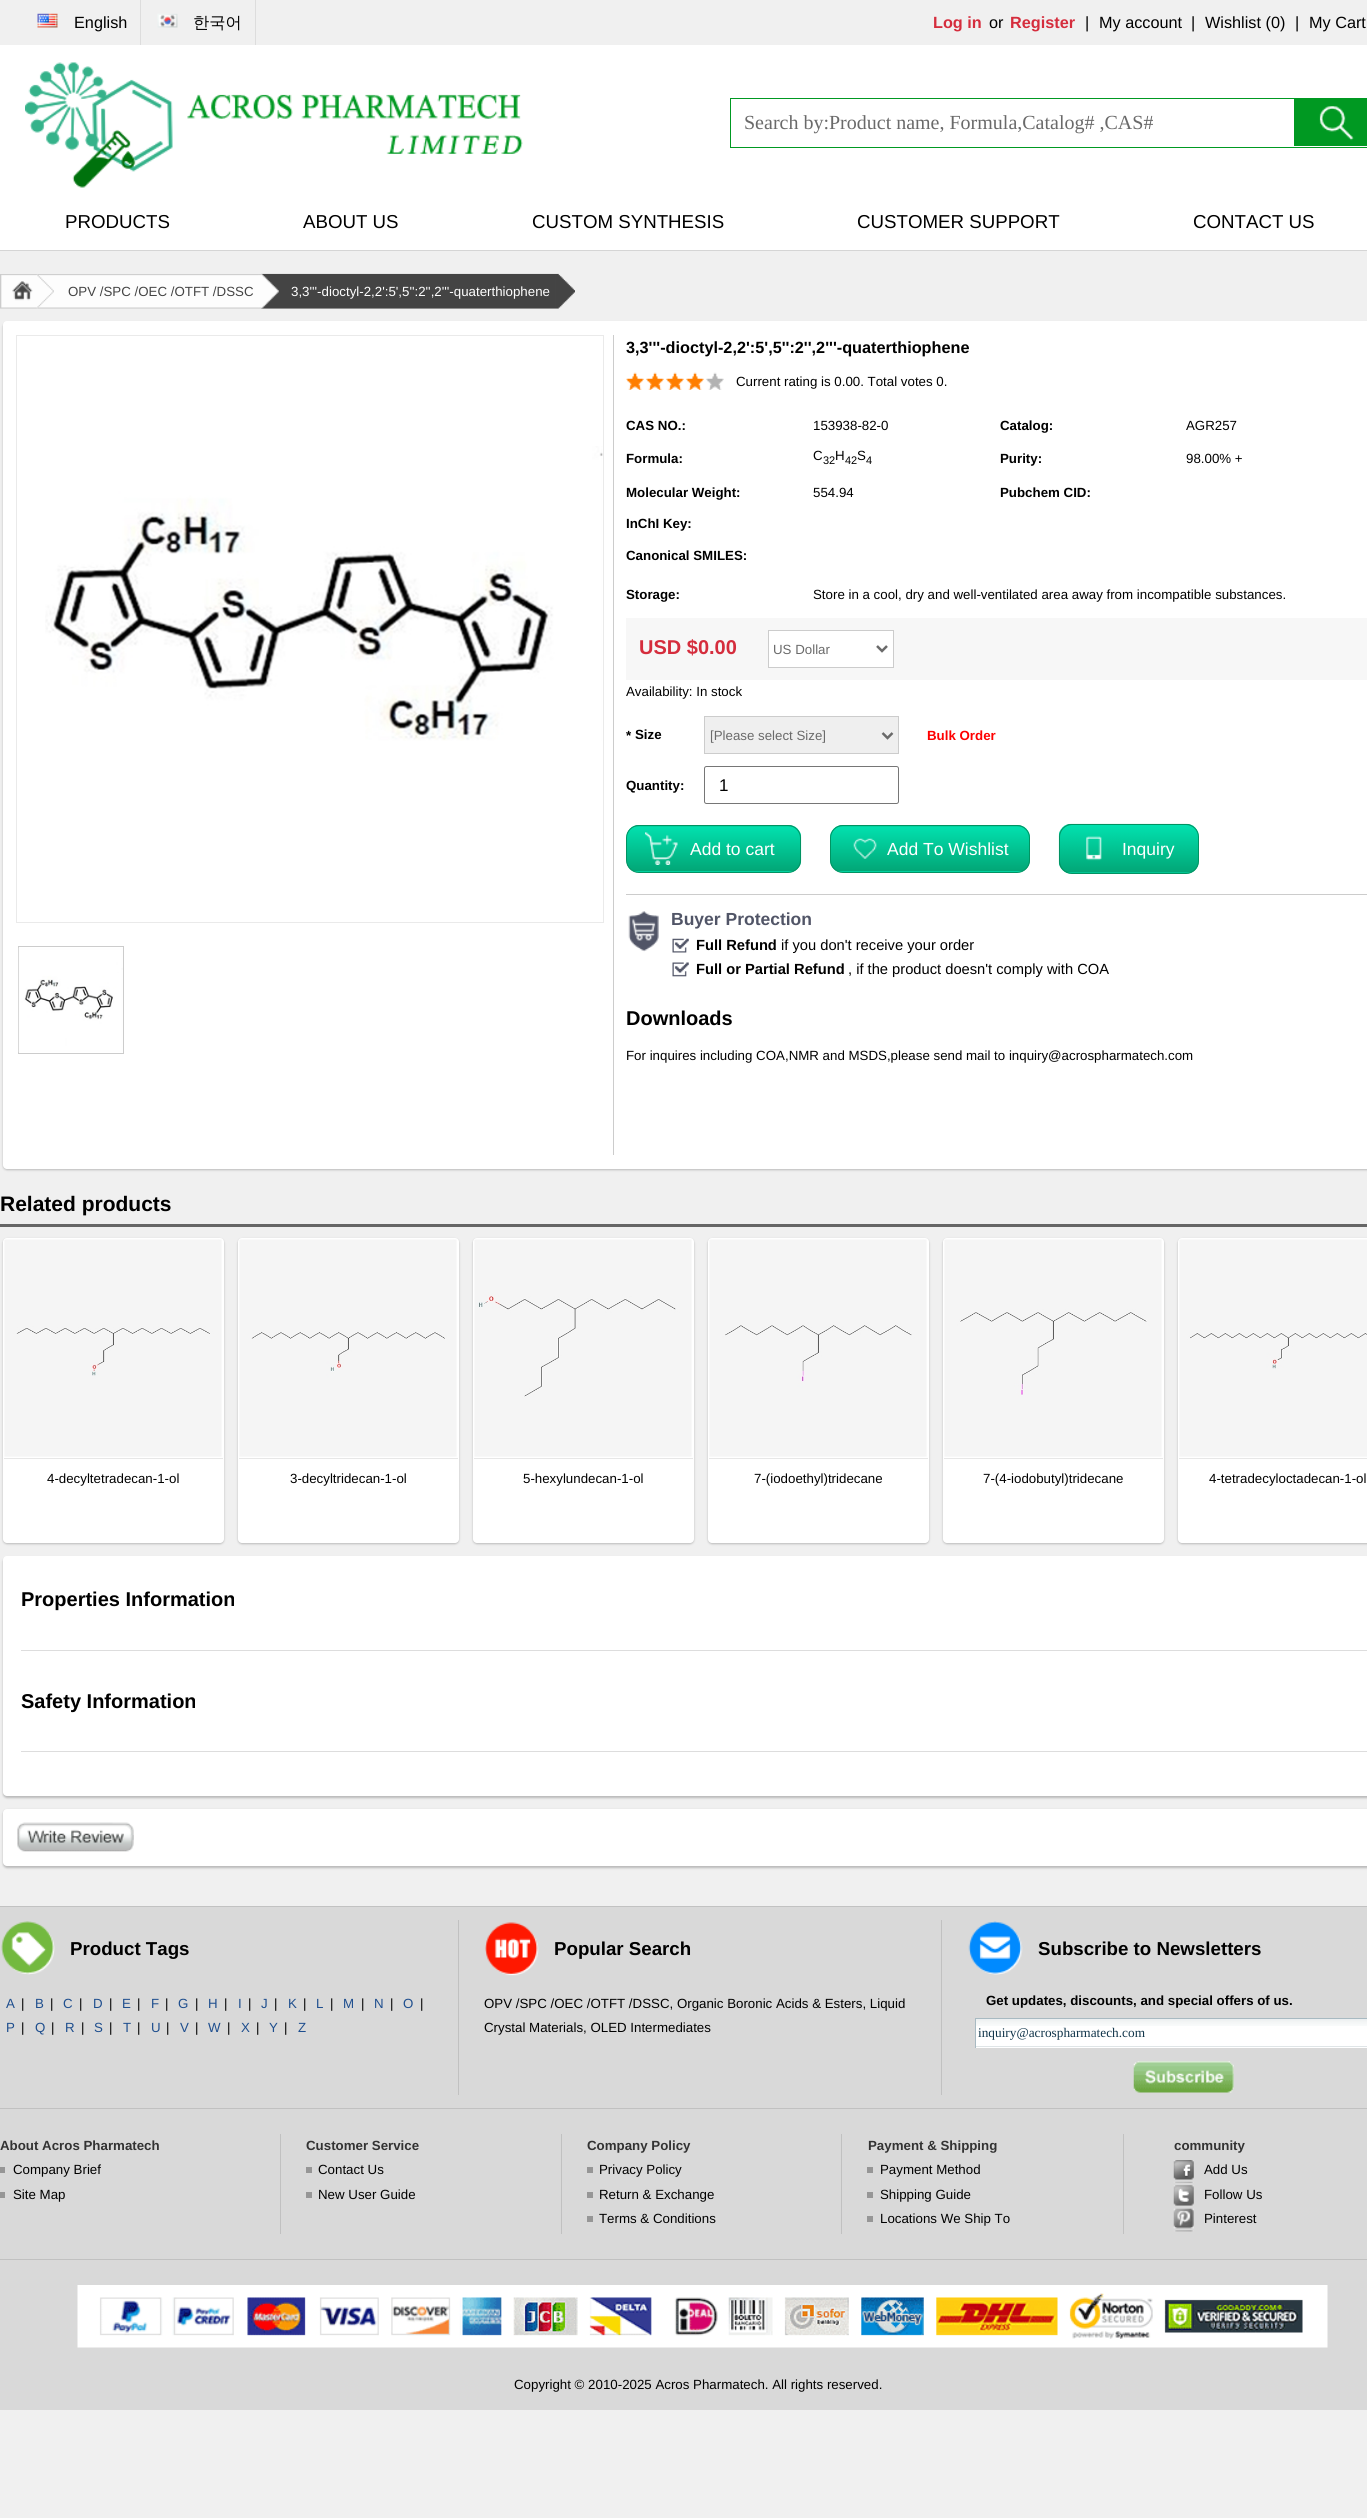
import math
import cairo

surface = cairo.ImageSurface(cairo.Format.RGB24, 1367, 2518)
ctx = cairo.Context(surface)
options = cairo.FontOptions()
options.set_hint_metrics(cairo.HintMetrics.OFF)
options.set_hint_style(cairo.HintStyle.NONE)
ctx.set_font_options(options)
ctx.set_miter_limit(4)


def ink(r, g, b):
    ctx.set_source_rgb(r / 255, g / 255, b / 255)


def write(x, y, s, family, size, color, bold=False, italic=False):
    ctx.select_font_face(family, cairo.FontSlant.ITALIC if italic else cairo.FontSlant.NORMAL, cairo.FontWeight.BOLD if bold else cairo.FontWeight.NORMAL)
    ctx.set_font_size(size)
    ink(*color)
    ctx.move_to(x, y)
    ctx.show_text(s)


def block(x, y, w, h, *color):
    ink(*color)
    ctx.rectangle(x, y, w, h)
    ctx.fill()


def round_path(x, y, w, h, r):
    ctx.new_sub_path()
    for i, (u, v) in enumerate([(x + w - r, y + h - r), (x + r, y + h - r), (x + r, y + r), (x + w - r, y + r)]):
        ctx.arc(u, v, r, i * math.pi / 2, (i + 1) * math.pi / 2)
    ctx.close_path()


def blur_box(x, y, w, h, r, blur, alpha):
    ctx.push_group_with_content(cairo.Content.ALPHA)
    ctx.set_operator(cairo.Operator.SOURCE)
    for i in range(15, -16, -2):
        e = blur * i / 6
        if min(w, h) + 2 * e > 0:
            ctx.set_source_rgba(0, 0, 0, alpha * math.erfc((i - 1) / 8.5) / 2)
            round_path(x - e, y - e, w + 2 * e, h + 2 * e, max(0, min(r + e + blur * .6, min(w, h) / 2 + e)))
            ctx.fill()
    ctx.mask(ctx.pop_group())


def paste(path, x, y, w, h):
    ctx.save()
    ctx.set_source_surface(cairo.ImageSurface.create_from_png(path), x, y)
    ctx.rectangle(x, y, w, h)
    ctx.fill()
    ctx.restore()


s1 = dict(family="Liberation Sans", size=16.25, color=(0, 0, 0))
s2 = dict(family="WenQuanYi Zen Hei Medium", size=16.25, color=(0, 0, 0))
s3 = dict(family="Liberation Sans", size=16.25, color=(213, 45, 61), bold=True)
s4 = dict(family="Liberation Serif", size=20, color=(106, 106, 106))
s5 = dict(family="Liberation Sans", size=18.7, color=(0, 0, 0))
s6 = dict(family="Liberation Sans", size=13.3, color=(68, 68, 68))
s7 = dict(family="Liberation Sans", size=13.3, color=(255, 255, 255))
s8 = dict(family="Liberation Sans", size=16.25, color=(0, 0, 0), bold=True)
s9 = dict(family="Liberation Sans", size=13.3, color=(0, 0, 0))
s10 = dict(family="Liberation Sans", size=13.3, color=(0, 0, 0), bold=True)
s11 = dict(family="Liberation Sans", size=11, color=(0, 0, 0))
s12 = dict(family="Liberation Sans", size=20, color=(213, 45, 61), bold=True)
s13 = dict(family="Liberation Sans", size=13.3, color=(106, 106, 106))
s14 = dict(family="Liberation Sans", size=13.3, color=(255, 0, 0), bold=True)
s15 = dict(family="Liberation Sans", size=17, color=(0, 0, 0))
s16 = dict(family="Liberation Sans", size=17.5, color=(255, 255, 255))
s17 = dict(family="Liberation Sans", size=17.5, color=(81, 85, 103), bold=True)
s18 = dict(family="Liberation Sans", size=14.7, color=(0, 0, 0), bold=True)
s19 = dict(family="Liberation Sans", size=14.7, color=(0, 0, 0))
s20 = dict(family="Liberation Sans", size=20, color=(0, 0, 0), bold=True)
s21 = dict(family="Liberation Sans", size=21, color=(0, 0, 0), bold=True)
s22 = dict(family="Liberation Sans", size=18.7, color=(0, 0, 0), bold=True)
s23 = dict(family="Liberation Sans", size=13.3, color=(30, 78, 142))
s24 = dict(family="Liberation Serif", size=13.3, color=(17, 53, 74))
s25 = dict(family="Liberation Sans", size=13.3, color=(51, 51, 51), bold=True)

ink(240, 240, 240)
ctx.paint()
block(0, 45, 1367, 205, 255, 255, 255)
block(0, 250, 1367, 1, 213, 213, 213)
block(140, 0, 1, 45, 221, 221, 221)
paste("pic1.png", 37, 13, 21, 15)
write(74, 28, "English", **s1)
block(255, 0, 1, 45, 221, 221, 221)
paste("pic2.png", 157, 13, 21, 15)
write(193, 28, "한국어", **s2)
write(933, 28, "Log in", **s3)
write(989, 28, "or", **s1)
write(1010, 28, "Register", **s3)
write(1085, 28, "|", **s1)
write(1099, 28, "My account", **s1)
write(1191, 28, "|", **s1)
write(1205, 28, "Wishlist (0)", **s1)
write(1295, 28, "|", **s1)
write(1309, 28, "My Cart", **s1)
paste("pic3.png", 25, 62, 498, 126)
ctx.rectangle(730.5, 98.5, 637, 49)
ink(0, 153, 34)
ctx.set_line_width(1)
ctx.stroke()
write(744, 129, "Search by:Product name, Formula,Catalog# ,CAS#", **s4)
block(1294, 99, 73, 47, 0, 153, 34)
paste("pic4.png", 1319, 106, 35, 35)
write(65, 228, "PRODUCTS", **s5)
write(303, 228, "ABOUT US", **s5)
write(532, 228, "CUSTOM SYNTHESIS", **s5)
write(857, 228, "CUSTOMER SUPPORT", **s5)
write(1193, 228, "CONTACT US", **s5)
paste("pic7.png", 261, 273, 314, 36)
paste("pic6.png", 37, 274, 242, 35)
paste("pic5.png", 0, 274, 54, 35)
write(68, 296, "OPV /SPC /OEC /OTFT /DSSC", **s6)
write(291, 296, "3,3'''-dioctyl-2,2':5',5'':2'',2'''-quaterthiophene", **s7)
ink(187, 187, 187)
blur_box(3, 323, 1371, 847, 4, 1, 1)
ink(255, 255, 255)
round_path(3, 321, 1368, 848, 4)
ctx.fill()
ctx.rectangle(16.5, 335.5, 587, 587)
ink(234, 234, 234)
ctx.stroke()
paste("pic8.png", 45, 446, 558, 295)
ctx.rectangle(18.5, 946.5, 105, 107)
ink(204, 204, 204)
ctx.stroke()
paste("pic9.png", 18, 947, 105, 106)
block(613, 335, 1, 820, 204, 204, 204)
write(626, 353, "3,3'''-dioctyl-2,2':5',5'':2'',2'''-quaterthiophene", **s8)
paste("pic10.png", 626, 372, 18, 18)
paste("pic11.png", 646, 372, 18, 18)
paste("pic11.png", 666, 372, 18, 18)
paste("pic11.png", 686, 372, 18, 18)
paste("pic12.png", 706, 372, 18, 18)
write(736, 386, "Current rating is 0.00. Total votes 0.", **s9)
write(626, 430, "CAS NO.:", **s10)
write(813, 430, "153938-82-0", **s9)
write(1000, 430, "Catalog:", **s10)
write(1186, 430, "AGR257", **s9)
write(626, 463, "Formula:", **s10)
write(813, 460, "C", **s9)
write(823, 464, "32", **s11)
write(835, 460, "H", **s9)
write(845, 464, "42", **s11)
write(857, 460, "S", **s9)
write(866, 464, "4", **s11)
write(1000, 463, "Purity:", **s10)
write(1186, 463, "98.00% +", **s9)
write(626, 497, "Molecular Weight:", **s10)
write(813, 497, "554.94", **s9)
write(1000, 497, "Pubchem CID:", **s10)
write(626, 528, "InChI Key:", **s10)
write(626, 560, "Canonical SMILES:", **s10)
write(626, 599, "Storage:", **s10)
write(813, 599, "Store in a cool, dry and well-ventilated area away from incompatible substances.", **s9)
block(626, 618, 741, 62, 247, 247, 247)
write(639, 654, "USD $0.00", **s12)
ink(255, 255, 255)
ctx.rectangle(768.5, 630.5, 125, 37)
ctx.fill_preserve()
ink(204, 204, 204)
ctx.stroke()
ctx.new_path()
ctx.move_to(877, 646)
ctx.line_to(882, 651)
ctx.line_to(887, 646)
ink(106, 106, 106)
ctx.set_line_width(2.5)
ctx.stroke()
write(773, 654, "US Dollar", **s13)
write(626, 696, "Availability: In stock", **s9)
write(626, 740, "*", **s10)
write(635, 739, "Size", **s10)
ink(239, 239, 239)
ctx.rectangle(704.5, 716.5, 194, 37)
ctx.fill_preserve()
ink(204, 204, 204)
ctx.set_line_width(1)
ctx.stroke()
ctx.new_path()
ctx.move_to(882.5, 733)
ctx.line_to(887.5, 738)
ctx.line_to(892.5, 733)
ink(106, 106, 106)
ctx.set_line_width(2.5)
ctx.stroke()
write(710, 740, "[Please select Size]", **s13)
write(927, 740, "Bulk Order", **s14)
write(626, 790, "Quantity:", **s10)
round_path(704.5, 766.5, 194, 37, 2)
ink(118, 118, 118)
ctx.set_line_width(1)
ctx.stroke()
write(719, 791, "1", **s15)
paste("pic13.png", 626, 825, 176, 48)
round_path(626.5, 825.5, 174, 47, 12.5)
ink(1, 147, 98)
ctx.stroke()
write(690, 855, "Add to cart", **s16)
paste("pic14.png", 830, 825, 200, 48)
round_path(830.5, 825.5, 199, 47, 12.5)
ink(1, 147, 98)
ctx.stroke()
write(887, 855, "Add To Wishlist", **s16)
paste("pic15.png", 1058, 823, 141, 51)
round_path(1059.5, 824.5, 139, 49, 12.5)
ink(1, 147, 98)
ctx.stroke()
write(1122, 855, "Inquiry", **s16)
block(626, 894, 741, 1, 204, 204, 204)
paste("pic16.png", 628, 911, 31, 41)
write(671, 925, "Buyer Protection", **s17)
paste("pic17.png", 672, 938, 17, 15)
write(696, 950, "Full Refund", **s18)
write(781, 950, "if you don't receive your order", **s19)
paste("pic18.png", 672, 962, 17, 15)
write(696, 974, "Full or Partial Refund", **s18)
write(848, 974, ", if the product doesn't comply with COA", **s19)
write(626, 1025, "Downloads", **s20)
write(626, 1060, "For inquires including COA,NMR and MSDS,please send mail to inquiry@acrospharmatech.com", **s9)
block(0, 1224, 1367, 3, 102, 102, 102)
write(0, 1211, "Related products", **s21)
ink(187, 187, 187)
blur_box(3, 1239, 221, 305, 4, 1, 1)
ink(255, 255, 255)
round_path(3, 1238, 221, 305, 4)
ctx.fill()
paste("pic19.png", 4, 1239, 218, 218)
block(4, 1458, 219, 1, 231, 231, 231)
write(47, 1483, "4-decyltetradecan-1-ol", **s9)
ink(187, 187, 187)
blur_box(238, 1239, 221, 305, 4, 1, 1)
ink(255, 255, 255)
round_path(238, 1238, 221, 305, 4)
ctx.fill()
paste("pic20.png", 239, 1239, 218, 218)
block(239, 1458, 219, 1, 231, 231, 231)
write(290, 1483, "3-decyltridecan-1-ol", **s9)
ink(187, 187, 187)
blur_box(473, 1239, 221, 305, 4, 1, 1)
ink(255, 255, 255)
round_path(473, 1238, 221, 305, 4)
ctx.fill()
paste("pic21.png", 474, 1239, 218, 218)
block(474, 1458, 219, 1, 231, 231, 231)
write(523, 1483, "5-hexylundecan-1-ol", **s9)
ink(187, 187, 187)
blur_box(708, 1239, 221, 305, 4, 1, 1)
ink(255, 255, 255)
round_path(708, 1238, 221, 305, 4)
ctx.fill()
paste("pic22.png", 709, 1239, 218, 218)
block(709, 1458, 219, 1, 231, 231, 231)
write(754, 1483, "7-(iodoethyl)tridecane", **s9)
ink(187, 187, 187)
blur_box(943, 1239, 221, 305, 4, 1, 1)
ink(255, 255, 255)
round_path(943, 1238, 221, 305, 4)
ctx.fill()
paste("pic23.png", 944, 1239, 218, 218)
block(944, 1458, 219, 1, 231, 231, 231)
write(983, 1483, "7-(4-iodobutyl)tridecane", **s9)
ink(187, 187, 187)
blur_box(1178, 1239, 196, 305, 4, 1, 1)
ink(255, 255, 255)
round_path(1178, 1238, 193, 305, 4)
ctx.fill()
paste("pic24.png", 1179, 1239, 188, 218)
block(1179, 1458, 188, 1, 231, 231, 231)
write(1209, 1483, "4-tetradecyloctadecan-1-ol", **s9)
ink(187, 187, 187)
blur_box(3, 1558, 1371, 240, 4, 1, 1)
ink(255, 255, 255)
round_path(3, 1556, 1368, 240, 4)
ctx.fill()
block(21, 1650, 1346, 1, 221, 221, 221)
write(21, 1606, "Properties Information", **s20)
block(21, 1751, 1346, 1, 221, 221, 221)
write(21, 1708, "Safety Information", **s20)
ink(187, 187, 187)
blur_box(3, 1810, 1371, 58, 4, 1, 1)
ink(255, 255, 255)
round_path(3, 1809, 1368, 57, 4)
ctx.fill()
paste("pic25.png", 17, 1822, 117, 30)
block(0, 1907, 1367, 503, 217, 217, 217)
block(0, 1906, 1367, 1, 194, 194, 194)
paste("pic26.png", 1, 1921, 54, 54)
write(70, 1955, "Product Tags", **s22)
write(6, 2008, "A", **s23)
write(21, 2008, "|", **s9)
write(35, 2008, "B", **s23)
write(50, 2008, "|", **s9)
write(63, 2008, "C", **s23)
write(79, 2008, "|", **s9)
write(93, 2008, "D", **s23)
write(109, 2008, "|", **s9)
write(122, 2008, "E", **s23)
write(137, 2008, "|", **s9)
write(151, 2008, "F", **s23)
write(165, 2008, "|", **s9)
write(178, 2008, "G", **s23)
write(195, 2008, "|", **s9)
write(208, 2008, "H", **s23)
write(224, 2008, "|", **s9)
write(238, 2008, "I", **s23)
write(248, 2008, "|", **s9)
write(261, 2008, "J", **s23)
write(274, 2008, "|", **s9)
write(288, 2008, "K", **s23)
write(303, 2008, "|", **s9)
write(316, 2008, "L", **s23)
write(330, 2008, "|", **s9)
write(343, 2008, "M", **s23)
write(361, 2008, "|", **s9)
write(374, 2008, "N", **s23)
write(390, 2008, "|", **s9)
write(403, 2008, "O", **s23)
write(420, 2008, "|", **s9)
write(6, 2032, "P", **s23)
write(21, 2032, "|", **s9)
write(35, 2032, "Q", **s23)
write(51, 2032, "|", **s9)
write(65, 2032, "R", **s23)
write(81, 2032, "|", **s9)
write(94, 2032, "S", **s23)
write(109, 2032, "|", **s9)
write(123, 2032, "T", **s23)
write(137, 2032, "|", **s9)
write(151, 2032, "U", **s23)
write(166, 2032, "|", **s9)
write(180, 2032, "V", **s23)
write(195, 2032, "|", **s9)
write(208, 2032, "W", **s23)
write(227, 2032, "|", **s9)
write(241, 2032, "X", **s23)
write(256, 2032, "|", **s9)
write(269, 2032, "Y", **s23)
write(284, 2032, "|", **s9)
write(298, 2032, "Z", **s23)
block(941, 1920, 1, 175, 193, 193, 193)
block(458, 1920, 1, 175, 193, 193, 193)
paste("pic27.png", 485, 1922, 54, 54)
write(554, 1955, "Popular Search", **s22)
write(484, 2008, "OPV /SPC /OEC /OTFT /DSSC, Organic Boronic Acids & Esters, Liquid", **s9)
write(484, 2032, "Crystal Materials, OLED Intermediates", **s9)
paste("pic28.png", 968, 1921, 55, 54)
write(1038, 1955, "Subscribe to Newsletters", **s22)
write(986, 2005, "Get updates, discounts, and special offers of us.", **s10)
block(976, 2026, 391, 22, 255, 255, 255)
paste("pic29.png", 976, 2019, 391, 7)
block(975, 2018, 392, 1, 168, 186, 194)
block(975, 2046, 392, 1, 223, 229, 231)
block(975, 2018, 1, 30, 168, 186, 194)
write(978, 2037, "inquiry@acrospharmatech.com", **s24)
paste("pic30.png", 1133, 2061, 101, 32)
block(0, 2108, 1367, 1, 193, 193, 193)
block(0, 2259, 1367, 1, 193, 193, 193)
block(280, 2134, 1, 100, 193, 193, 193)
write(0, 2150, "About Acros Pharmatech", **s25)
block(0, 2167, 5, 6, 150, 150, 150)
write(13, 2174, "Company Brief", **s9)
block(0, 2192, 5, 6, 150, 150, 150)
write(13, 2199, "Site Map", **s9)
block(561, 2134, 1, 100, 193, 193, 193)
write(306, 2150, "Customer Service", **s25)
block(306, 2167, 6, 6, 150, 150, 150)
write(318, 2174, "Contact Us", **s9)
block(306, 2192, 6, 6, 150, 150, 150)
write(318, 2199, "New User Guide", **s9)
block(841, 2134, 1, 100, 193, 193, 193)
write(587, 2150, "Company Policy", **s25)
block(587, 2167, 6, 6, 150, 150, 150)
write(599, 2174, "Privacy Policy", **s9)
block(587, 2192, 6, 6, 150, 150, 150)
write(599, 2199, "Return & Exchange", **s9)
block(587, 2216, 6, 6, 150, 150, 150)
write(599, 2223, "Terms & Conditions", **s9)
block(1123, 2134, 1, 100, 193, 193, 193)
write(868, 2150, "Payment & Shipping", **s25)
block(867, 2167, 6, 6, 150, 150, 150)
write(880, 2174, "Payment Method", **s9)
block(867, 2192, 6, 6, 150, 150, 150)
write(880, 2199, "Shipping Guide", **s9)
block(867, 2216, 6, 6, 150, 150, 150)
write(880, 2223, "Locations We Ship To", **s9)
write(1174, 2150, "community", **s25)
paste("pic31.png", 1173, 2160, 21, 23)
write(1204, 2174, "Add Us", **s9)
paste("pic32.png", 1173, 2185, 21, 21)
write(1204, 2199, "Follow Us", **s9)
paste("pic33.png", 1173, 2208, 21, 24)
write(1204, 2223, "Pinterest", **s9)
paste("pic34.png", 77, 2285, 1251, 63)
write(514, 2389, "Copyright © 2010-2025 Acros Pharmatech. All rights reserved.", **s9)
surface.write_to_png("screenshot.png")
